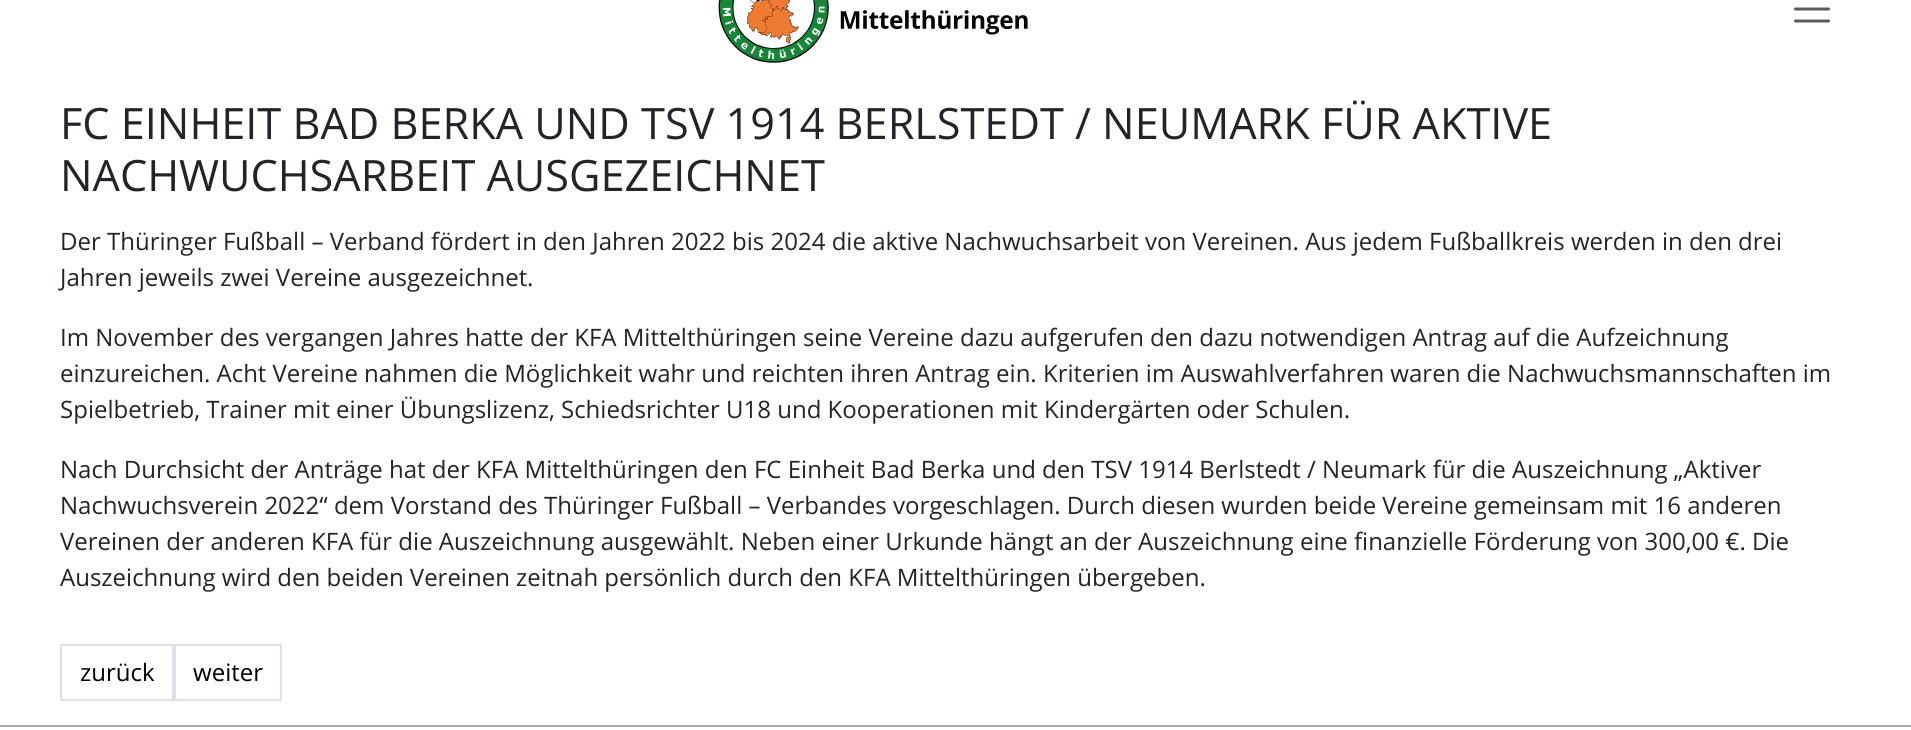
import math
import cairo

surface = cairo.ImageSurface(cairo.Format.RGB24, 1911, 730)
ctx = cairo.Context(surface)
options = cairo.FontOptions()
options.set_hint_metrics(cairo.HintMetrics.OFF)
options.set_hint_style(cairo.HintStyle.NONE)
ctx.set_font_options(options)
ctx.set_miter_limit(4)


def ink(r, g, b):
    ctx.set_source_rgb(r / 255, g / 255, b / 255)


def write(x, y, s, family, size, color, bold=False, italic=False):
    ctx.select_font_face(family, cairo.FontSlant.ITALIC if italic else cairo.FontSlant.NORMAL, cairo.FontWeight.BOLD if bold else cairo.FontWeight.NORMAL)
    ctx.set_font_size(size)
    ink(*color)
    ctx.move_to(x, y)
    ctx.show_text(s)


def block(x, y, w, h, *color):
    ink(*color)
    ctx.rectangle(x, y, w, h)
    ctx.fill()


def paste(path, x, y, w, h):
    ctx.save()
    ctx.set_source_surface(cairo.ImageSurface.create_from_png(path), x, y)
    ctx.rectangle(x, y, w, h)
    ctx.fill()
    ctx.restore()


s1 = dict(family="Open Sans", size=43.2, color=(33, 37, 41))
s2 = dict(family="Open Sans", size=24, color=(33, 37, 41))
s3 = dict(family="Open Sans", size=24, color=(0, 0, 0))

ink(255, 255, 255)
ctx.paint()
paste("pic1.png", 718, 0, 310, 63)
ctx.new_path()
ctx.move_to(1795.5, -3)
ctx.line_to(1828.5, -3)
ctx.move_to(1795.5, 9)
ctx.line_to(1828.5, 9)
ctx.move_to(1795.5, 21)
ctx.line_to(1828.5, 21)
ink(89, 92, 95)
ctx.set_line_width(3)
ctx.set_line_cap(cairo.LineCap.ROUND)
ctx.stroke()
write(60, 139, "FC EINHEIT BAD BERKA UND TSV 1914 BERLSTEDT / NEUMARK FÜR AKTIVE", **s1)
write(60, 191, "NACHWUCHSARBEIT AUSGEZEICHNET", **s1)
write(60, 250, "Der Thüringer Fußball – Verband fördert in den Jahren 2022 bis 2024 die aktive Nachwuchsarbeit von Vereinen. Aus jedem Fußballkreis werden in den drei", **s2)
write(60, 286, "Jahren jeweils zwei Vereine ausgezeichnet.", **s2)
write(60, 346, "Im November des vergangen Jahres hatte der KFA Mittelthüringen seine Vereine dazu aufgerufen den dazu notwendigen Antrag auf die Aufzeichnung", **s2)
write(60, 382, "einzureichen. Acht Vereine nahmen die Möglichkeit wahr und reichten ihren Antrag ein. Kriterien im Auswahlverfahren waren die Nachwuchsmannschaften im", **s2)
write(60, 418, "Spielbetrieb, Trainer mit einer Übungslizenz, Schiedsrichter U18 und Kooperationen mit Kindergärten oder Schulen.", **s2)
write(60, 478, "Nach Durchsicht der Anträge hat der KFA Mittelthüringen den FC Einheit Bad Berka und den TSV 1914 Berlstedt / Neumark für die Auszeichnung „Aktiver", **s2)
write(60, 514, "Nachwuchsverein 2022“ dem Vorstand des Thüringer Fußball – Verbandes vorgeschlagen. Durch diesen wurden beide Vereine gemeinsam mit 16 anderen", **s2)
write(60, 550, "Vereinen der anderen KFA für die Auszeichnung ausgewählt. Neben einer Urkunde hängt an der Auszeichnung eine finanzielle Förderung von 300,00 €. Die", **s2)
write(60, 586, "Auszeichnung wird den beiden Vereinen zeitnah persönlich durch den KFA Mittelthüringen übergeben.", **s2)
ctx.rectangle(61, 645, 112, 55)
ink(222, 226, 230)
ctx.set_line_width(2)
ctx.set_line_cap(cairo.LineCap.BUTT)
ctx.stroke()
write(80, 681, "zurück", **s3)
ctx.rectangle(175, 645, 106, 55)
ink(222, 226, 230)
ctx.stroke()
write(193, 681, "weiter", **s3)
block(0, 725, 1911, 2, 169, 169, 169)
surface.write_to_png("screenshot.png")
